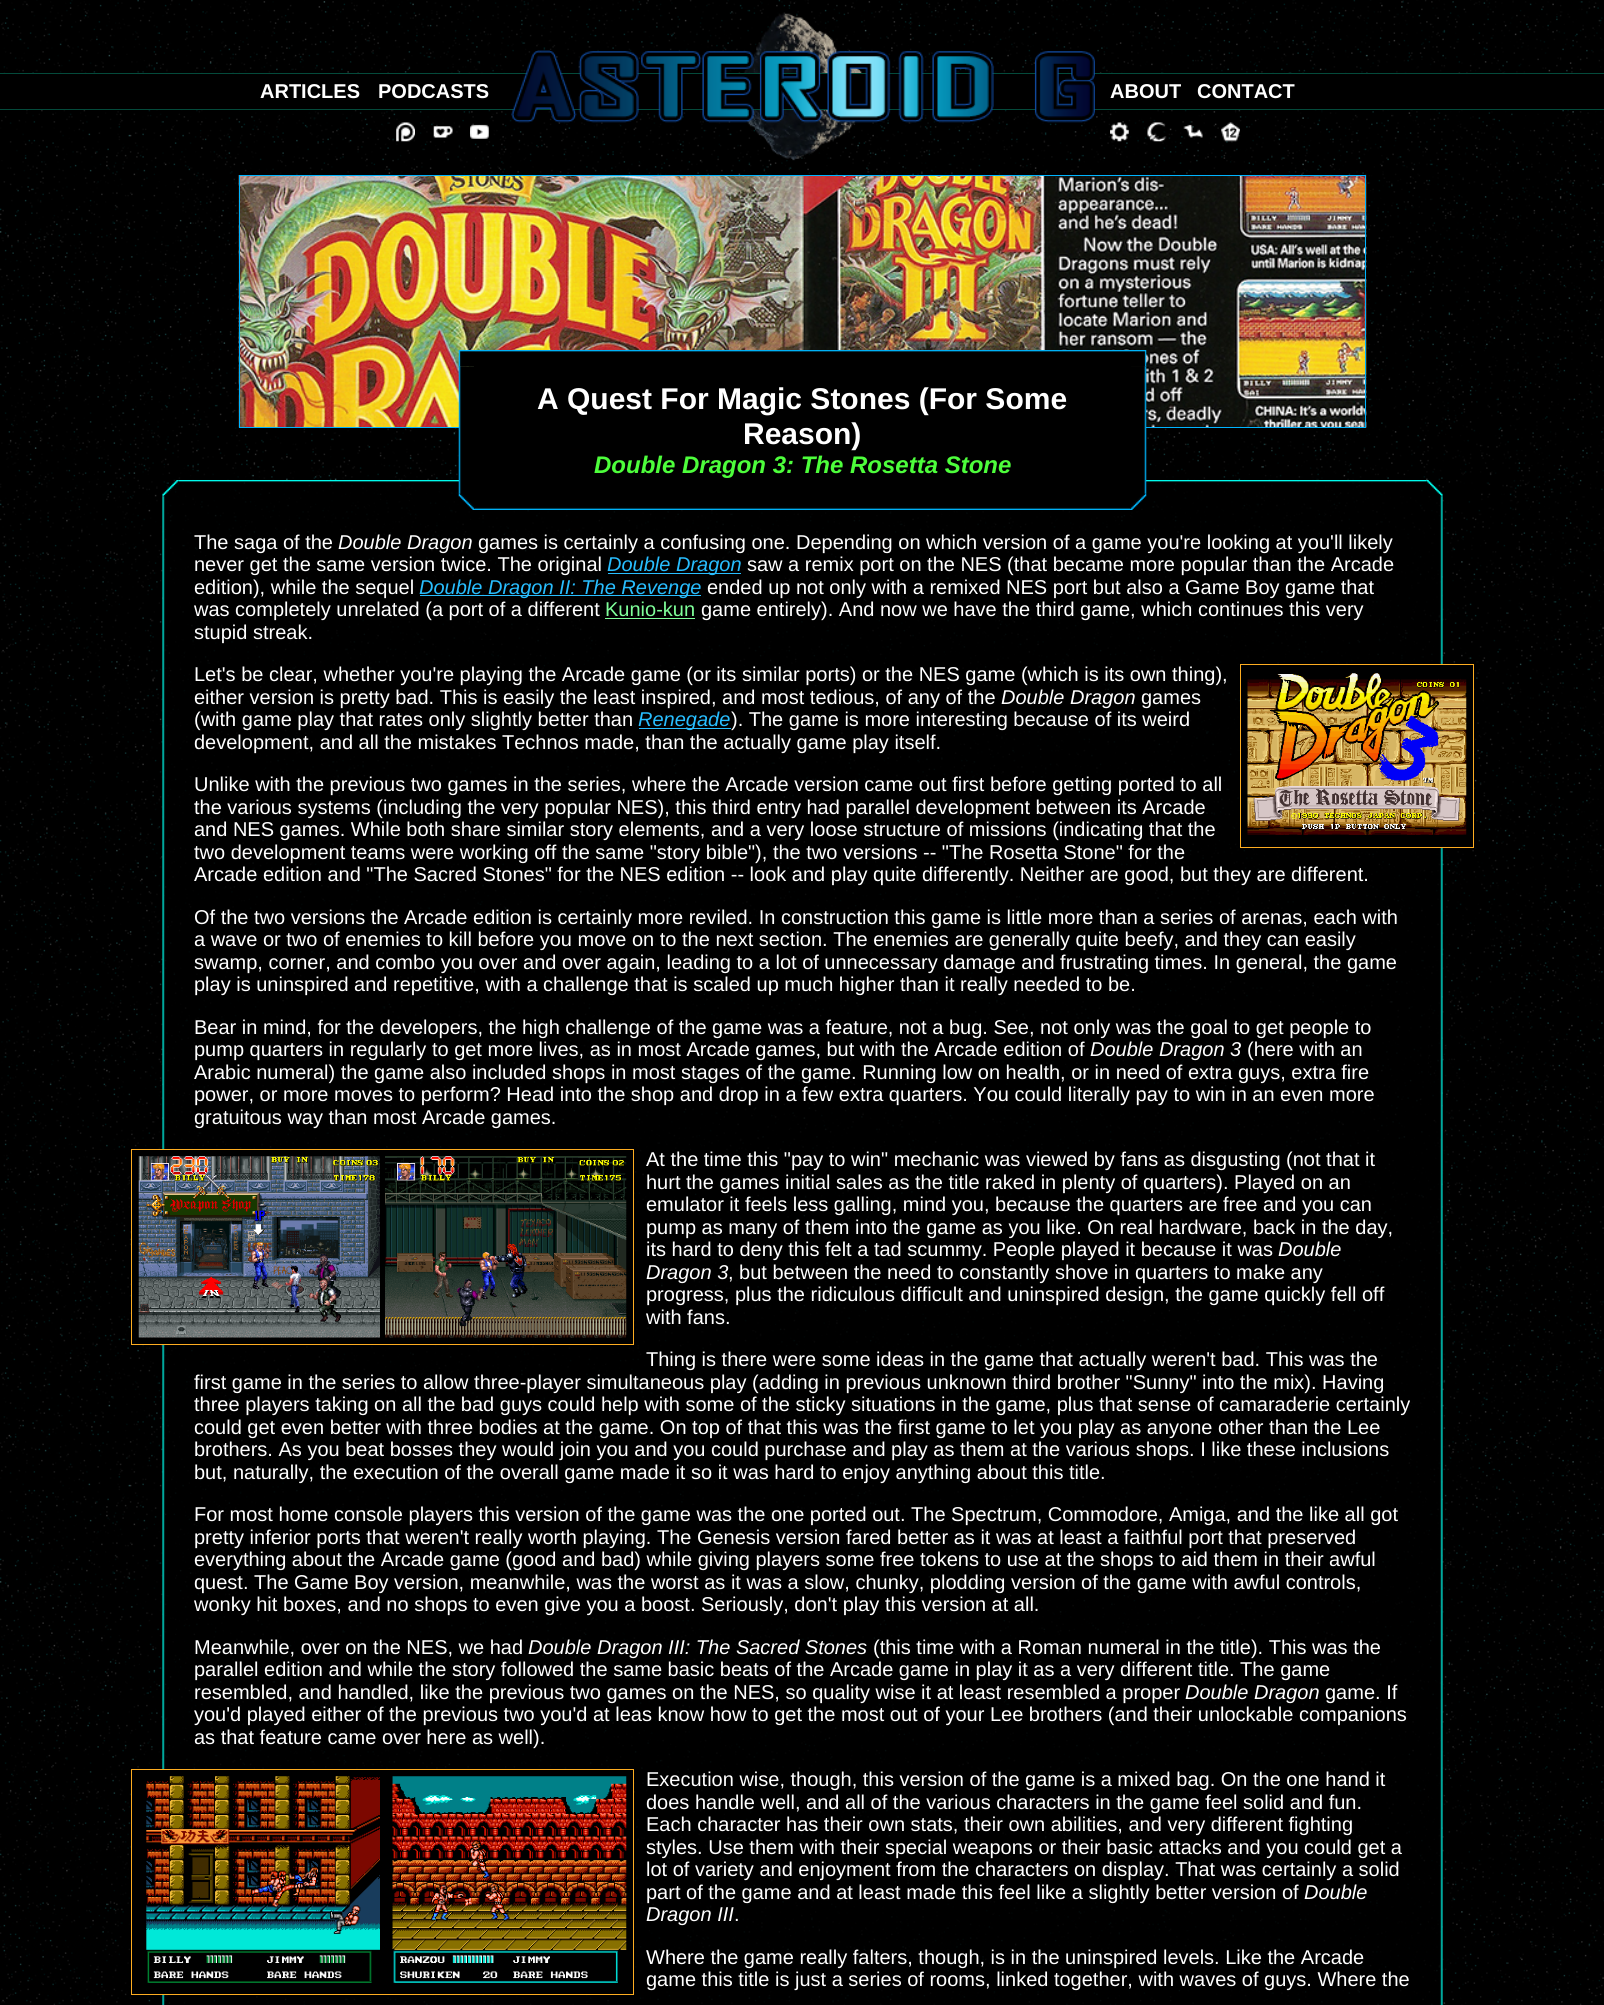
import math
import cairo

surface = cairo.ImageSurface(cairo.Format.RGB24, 1604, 2005)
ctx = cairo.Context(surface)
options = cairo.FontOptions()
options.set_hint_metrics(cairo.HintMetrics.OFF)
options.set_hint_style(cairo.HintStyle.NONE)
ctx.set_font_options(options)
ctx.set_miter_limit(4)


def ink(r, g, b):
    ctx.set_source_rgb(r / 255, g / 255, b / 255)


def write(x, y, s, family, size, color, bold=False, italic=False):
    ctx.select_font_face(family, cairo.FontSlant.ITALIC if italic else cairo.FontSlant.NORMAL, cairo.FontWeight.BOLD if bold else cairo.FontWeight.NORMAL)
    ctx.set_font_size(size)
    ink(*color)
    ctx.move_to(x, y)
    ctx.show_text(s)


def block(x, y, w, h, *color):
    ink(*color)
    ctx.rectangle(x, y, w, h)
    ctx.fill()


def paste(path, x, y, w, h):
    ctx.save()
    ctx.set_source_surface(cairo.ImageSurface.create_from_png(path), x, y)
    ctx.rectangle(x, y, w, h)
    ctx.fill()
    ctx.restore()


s1 = dict(family="Liberation Sans", size=20, color=(255, 255, 255), bold=True)
s2 = dict(family="Liberation Sans", size=30, color=(255, 255, 255), bold=True)
s3 = dict(family="Liberation Sans", size=24, color=(77, 254, 59), bold=True, italic=True)
s4 = dict(family="Liberation Sans", size=20, color=(255, 255, 255))
s5 = dict(family="Liberation Sans", size=20, color=(255, 255, 255), italic=True)
s6 = dict(family="Liberation Sans", size=20, color=(40, 190, 255), italic=True)
s7 = dict(family="Liberation Sans", size=20, color=(127, 255, 154))

ink(255, 255, 255)
ctx.paint()
paste("pic1.png", 0, 0, 1604, 2005)
paste("pic2.png", 743, 12, 120, 149)
block(0, 74, 1604, 35, 0, 0, 0)
block(0, 73, 1604, 1, 4, 74, 59)
block(0, 109, 1604, 1, 4, 74, 59)
paste("pic3.png", 511, 50, 584, 73)
write(260, 98, "ARTICLES", **s1)
write(378, 98, "PODCASTS", **s1)
write(1110, 98, "ABOUT", **s1)
write(1197, 98, "CONTACT", **s1)
paste("pic4.png", 396, 122, 19, 20)
paste("pic5.png", 433, 126, 20, 12)
paste("pic6.png", 470, 124, 19, 15)
paste("pic7.png", 1110, 122, 19, 20)
paste("pic8.png", 1147, 122, 20, 20)
paste("pic9.png", 1183, 124, 20, 14)
paste("pic10.png", 1221, 122, 19, 20)
paste("pic11.png", 238, 175, 1129, 253)
ctx.rectangle(239.5, 175.5, 1126, 252)
ink(0, 180, 255)
ctx.set_line_width(1)
ctx.stroke()
ctx.set_source_rgba(0, 0, 0, 0.8)
ctx.rectangle(177, 495, 1251, 1510)
ctx.fill()
paste("pic13.png", 162, 480, 1281, 1525)
block(474, 366, 657, 128, 0, 0, 0)
paste("pic12.png", 458, 350, 689, 160)
write(537, 409, "A Quest For Magic Stones (For Some", **s2)
write(743, 444, "Reason)", **s2)
write(594, 473, "Double Dragon 3: The Rosetta Stone", **s3)
write(194, 549, "The saga of the", **s4)
write(338, 549, "Double Dragon", **s5)
write(478, 549, "games is certainly a confusing one. Depending on which version of a game you're looking at you'll likely", **s4)
write(194, 571, "never get the same version twice. The original", **s4)
block(608, 573, 133, 1, 40, 190, 255)
write(607, 571, "Double Dragon", **s6)
write(747, 571, "saw a remix port on the NES (that became more popular than the Arcade", **s4)
write(194, 594, "edition), while the sequel", **s4)
block(420, 595, 281, 1, 40, 190, 255)
write(419, 594, "Double Dragon II: The Revenge", **s6)
write(707, 594, "ended up not only with a remixed NES port but also a Game Boy game that", **s4)
write(194, 616, "was completely unrelated (a port of a different", **s4)
write(605, 616, "Kunio-kun", **s7)
block(605, 618, 90, 1, 127, 255, 154)
write(701, 616, "game entirely). And now we have the third game, which continues this very", **s4)
write(194, 639, "stupid streak.", **s4)
write(194, 681, "Let's be clear, whether you're playing the Arcade game (or its similar ports) or the NES game (which is its own thing),", **s4)
write(194, 704, "either version is pretty bad. This is easily the least inspired, and most tedious, of any of the", **s4)
write(1001, 704, "Double Dragon", **s5)
write(1141, 704, "games", **s4)
write(194, 726, "(with game play that rates only slightly better than", **s4)
block(639, 728, 92, 1, 40, 190, 255)
write(638, 726, "Renegade", **s6)
write(731, 726, "). The game is more interesting because of its weird", **s4)
write(194, 749, "development, and all the mistakes Technos made, than the actually game play itself.", **s4)
ink(0, 0, 0)
ctx.rectangle(1240.5, 664.5, 233, 183)
ctx.fill_preserve()
ink(254, 173, 33)
ctx.stroke()
paste("pic14.png", 1247, 673, 220, 162)
write(194, 791, "Unlike with the previous two games in the series, where the Arcade version came out first before getting ported to all", **s4)
write(194, 814, "the various systems (including the very popular NES), this third entry had parallel development between its Arcade", **s4)
write(194, 836, "and NES games. While both share similar story elements, and a very loose structure of missions (indicating that the", **s4)
write(194, 859, "two development teams were working off the same \"story bible\"), the two versions -- \"The Rosetta Stone\" for the", **s4)
write(194, 881, "Arcade edition and \"The Sacred Stones\" for the NES edition -- look and play quite differently. Neither are good, but they are different.", **s4)
write(194, 924, "Of the two versions the Arcade edition is certainly more reviled. In construction this game is little more than a series of arenas, each with", **s4)
write(194, 946, "a wave or two of enemies to kill before you move on to the next section. The enemies are generally quite beefy, and they can easily", **s4)
write(194, 969, "swamp, corner, and combo you over and over again, leading to a lot of unnecessary damage and frustrating times. In general, the game", **s4)
write(194, 991, "play is uninspired and repetitive, with a challenge that is scaled up much higher than it really needed to be.", **s4)
write(194, 1034, "Bear in mind, for the developers, the high challenge of the game was a feature, not a bug. See, not only was the goal to get people to", **s4)
write(194, 1056, "pump quarters in regularly to get more lives, as in most Arcade games, but with the Arcade edition of", **s4)
write(1090, 1056, "Double Dragon 3", **s5)
write(1247, 1056, "(here with an", **s4)
write(194, 1079, "Arabic numeral) the game also included shops in most stages of the game. Running low on health, or in need of extra guys, extra fire", **s4)
write(194, 1101, "power, or more moves to perform? Head into the shop and drop in a few extra quarters. You could literally pay to win in an even more", **s4)
write(194, 1124, "gratuitous way than most Arcade games.", **s4)
ink(0, 0, 0)
ctx.rectangle(131.5, 1149.5, 502, 195)
ctx.fill_preserve()
ink(254, 173, 33)
ctx.stroke()
paste("pic15.png", 138, 1156, 242, 182)
paste("pic16.png", 385, 1156, 242, 182)
write(646, 1166, "At the time this \"pay to win\" mechanic was viewed by fans as disgusting (not that it", **s4)
write(646, 1189, "hurt the games initial sales as the title raked in plenty of quarters). Played on an", **s4)
write(646, 1211, "emulator it feels less galling, mind you, because the quarters are free and you can", **s4)
write(646, 1234, "pump as many of them into the game as you like. On real hardware, back in the day,", **s4)
write(646, 1256, "its hard to deny this felt a tad scummy. People played it because it was", **s4)
write(1278, 1256, "Double", **s5)
write(646, 1279, "Dragon 3", **s5)
write(728, 1279, ", but between the need to constantly shove in quarters to make any", **s4)
write(646, 1301, "progress, plus the ridiculous difficult and uninspired design, the game quickly fell off", **s4)
write(646, 1324, "with fans.", **s4)
write(646, 1366, "Thing is there were some ideas in the game that actually weren't bad. This was the", **s4)
write(194, 1389, "first game in the series to allow three-player simultaneous play (adding in previous unknown third brother \"Sunny\" into the mix). Having", **s4)
write(194, 1411, "three players taking on all the bad guys could help with some of the sticky situations in the game, plus that sense of camaraderie certainly", **s4)
write(194, 1434, "could get even better with three bodies at the game. On top of that this was the first game to let you play as anyone other than the Lee", **s4)
write(194, 1456, "brothers. As you beat bosses they would join you and you could purchase and play as them at the various shops. I like these inclusions", **s4)
write(194, 1479, "but, naturally, the execution of the overall game made it so it was hard to enjoy anything about this title.", **s4)
write(194, 1521, "For most home console players this version of the game was the one ported out. The Spectrum, Commodore, Amiga, and the like all got", **s4)
write(194, 1544, "pretty inferior ports that weren't really worth playing. The Genesis version fared better as it was at least a faithful port that preserved", **s4)
write(194, 1566, "everything about the Arcade game (good and bad) while giving players some free tokens to use at the shops to aid them in their awful", **s4)
write(194, 1589, "quest. The Game Boy version, meanwhile, was the worst as it was a slow, chunky, plodding version of the game with awful controls,", **s4)
write(194, 1611, "wonky hit boxes, and no shops to even give you a boost. Seriously, don't play this version at all.", **s4)
write(194, 1654, "Meanwhile, over on the NES, we had", **s4)
write(528, 1654, "Double Dragon III: The Sacred Stones", **s5)
write(873, 1654, "(this time with a Roman numeral in the title). This was the", **s4)
write(194, 1676, "parallel edition and while the story followed the same basic beats of the Arcade game in play it as a very different title. The game", **s4)
write(194, 1699, "resembled, and handled, like the previous two games on the NES, so quality wise it at least resembled a proper", **s4)
write(1185, 1699, "Double Dragon", **s5)
write(1325, 1699, "game. If", **s4)
write(194, 1721, "you'd played either of the previous two you'd at leas know how to get the most out of your Lee brothers (and their unlockable companions", **s4)
write(194, 1744, "as that feature came over here as well).", **s4)
ink(0, 0, 0)
ctx.rectangle(131.5, 1769.5, 502, 225)
ctx.fill_preserve()
ink(254, 173, 33)
ctx.stroke()
paste("pic17.png", 146, 1776, 234, 207)
paste("pic18.png", 392, 1776, 235, 207)
write(646, 1786, "Execution wise, though, this version of the game is a mixed bag. On the one hand it", **s4)
write(646, 1809, "does handle well, and all of the various characters in the game feel solid and fun.", **s4)
write(646, 1831, "Each character has their own stats, their own abilities, and very different fighting", **s4)
write(646, 1854, "styles. Use them with their special weapons or their basic attacks and you could get a", **s4)
write(646, 1876, "lot of variety and enjoyment from the characters on display. That was certainly a solid", **s4)
write(646, 1899, "part of the game and at least made this feel like a slightly better version of", **s4)
write(1304, 1899, "Double", **s5)
write(646, 1921, "Dragon III", **s5)
write(734, 1921, ".", **s4)
write(646, 1964, "Where the game really falters, though, is in the uninspired levels. Like the Arcade", **s4)
write(646, 1986, "game this title is just a series of rooms, linked together, with waves of guys. Where the", **s4)
surface.write_to_png("screenshot.png")
